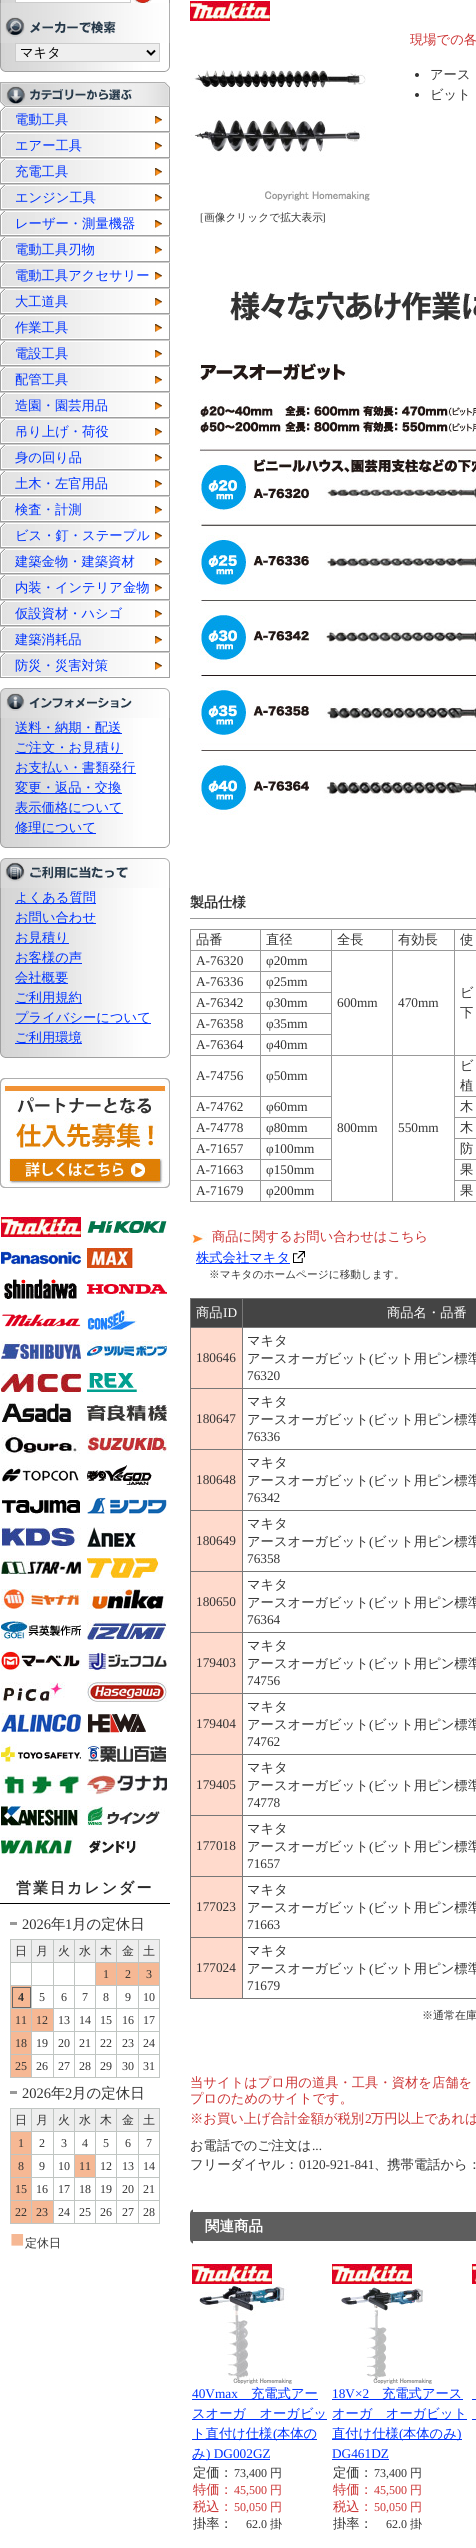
import math
import cairo

surface = cairo.ImageSurface(cairo.Format.RGB24, 476, 2548)
ctx = cairo.Context(surface)
options = cairo.FontOptions()
options.set_hint_metrics(cairo.HintMetrics.OFF)
options.set_hint_style(cairo.HintStyle.NONE)
ctx.set_font_options(options)
ctx.set_miter_limit(4)


def ink(r, g, b):
    ctx.set_source_rgb(r / 255, g / 255, b / 255)


def write(x, y, s, family, size, color, bold=False, italic=False):
    ctx.select_font_face(family, cairo.FontSlant.ITALIC if italic else cairo.FontSlant.NORMAL, cairo.FontWeight.BOLD if bold else cairo.FontWeight.NORMAL)
    ctx.set_font_size(size)
    ink(*color)
    ctx.move_to(x, y)
    ctx.show_text(s)


def write_spaced(x, y, s, letter, word):
    ctx.move_to(x, y)
    for ch in s:
        ctx.show_text(ch)
        ctx.rel_move_to(letter + word * (ch == ' '), 0)


def block(x, y, w, h, *color):
    ink(*color)
    ctx.rectangle(x, y, w, h)
    ctx.fill()


def round_path(x, y, w, h, r):
    ctx.new_sub_path()
    for i, (u, v) in enumerate([(x + w - r, y + h - r), (x + r, y + h - r), (x + r, y + r), (x + w - r, y + r)]):
        ctx.arc(u, v, r, i * math.pi / 2, (i + 1) * math.pi / 2)
    ctx.close_path()


def paste(path, x, y, w, h):
    ctx.save()
    ctx.set_source_surface(cairo.ImageSurface.create_from_png(path), x, y)
    ctx.rectangle(x, y, w, h)
    ctx.fill()
    ctx.restore()


s1 = dict(family="WenQuanYi Zen Hei Medium", size=13.3, color=(0, 0, 0))
s2 = dict(family="WenQuanYi Zen Hei Medium", size=13.3, color=(0, 51, 255))
s3 = dict(family="Liberation Serif", size=14.5, color=(51, 51, 51))
s4 = dict(family="WenQuanYi Zen Hei Medium", size=14.5, color=(51, 51, 51))
s5 = dict(family="WenQuanYi Zen Hei Medium", size=12, color=(51, 51, 51))
s6 = dict(family="Liberation Serif", size=12, color=(51, 51, 51))
s7 = dict(family="Liberation Serif", size=12, color=(51, 51, 51), bold=True)
s8 = dict(family="Liberation Serif", size=24, color=(246, 184, 148))
s9 = dict(family="WenQuanYi Zen Hei Medium", size=13.3, color=(204, 51, 51))
s10 = dict(family="WenQuanYi Zen Hei Medium", size=13.3, color=(51, 51, 51))
s11 = dict(family="Liberation Serif", size=10.7, color=(51, 51, 51))
s12 = dict(family="WenQuanYi Zen Hei Medium", size=10.7, color=(51, 51, 51))
s13 = dict(family="WenQuanYi Zen Hei", size=14, color=(51, 51, 51), bold=True)
s14 = dict(family="Liberation Serif", size=13.3, color=(51, 51, 51))
s15 = dict(family="WenQuanYi Zen Hei Medium", size=13.3, color=(255, 255, 255))
s16 = dict(family="Liberation Serif", size=13.3, color=(255, 255, 255))
s17 = dict(family="WenQuanYi Zen Hei Medium", size=11, color=(51, 51, 51))
s18 = dict(family="Liberation Serif", size=13.3, color=(204, 51, 51))
s19 = dict(family="WenQuanYi Zen Hei", size=14.5, color=(255, 255, 255), bold=True)
s20 = dict(family="Liberation Serif", size=13.3, color=(0, 51, 255))
s21 = dict(family="Liberation Serif", size=12, color=(204, 51, 51))
s22 = dict(family="WenQuanYi Zen Hei Medium", size=12, color=(204, 51, 51))

ink(255, 255, 255)
ctx.paint()
paste("pic1.png", 0, 0, 170, 72)
ink(255, 255, 255)
ctx.rectangle(15.5, -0.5, 115, 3)
ctx.fill_preserve()
ink(204, 204, 204)
ctx.set_line_width(1)
ctx.stroke()
paste("pic2.png", 133, 0, 19, 3)
paste("pic3.png", 0, 3, 170, 40)
ink(239, 239, 239)
ctx.rectangle(15.5, 43.5, 144, 18)
ctx.fill_preserve()
ink(204, 204, 204)
ctx.stroke()
ctx.new_path()
ctx.move_to(147, 50.5)
ctx.line_to(151, 54.5)
ctx.line_to(155, 50.5)
ink(0, 0, 0)
ctx.set_line_width(2)
ctx.stroke()
write(20, 57, "マキタ", **s1)
paste("pic4.png", 0, 82, 170, 25)
block(0, 132, 170, 1, 204, 204, 204)
paste("pic5.png", 0, 107, 170, 25)
write(15, 124, "電動工具", **s2)
block(0, 158, 170, 1, 204, 204, 204)
paste("pic5.png", 0, 133, 170, 25)
write(15, 150, "エアー工具", **s2)
block(0, 184, 170, 1, 204, 204, 204)
paste("pic5.png", 0, 159, 170, 25)
write(15, 176, "充電工具", **s2)
block(0, 210, 170, 1, 204, 204, 204)
paste("pic5.png", 0, 185, 170, 25)
write(15, 202, "エンジン工具", **s2)
block(0, 236, 170, 1, 204, 204, 204)
paste("pic5.png", 0, 211, 170, 25)
write(15, 228, "レーザー・測量機器", **s2)
block(0, 262, 170, 1, 204, 204, 204)
paste("pic5.png", 0, 237, 170, 25)
write(15, 254, "電動工具刃物", **s2)
block(0, 288, 170, 1, 204, 204, 204)
paste("pic5.png", 0, 263, 170, 25)
write(15, 280, "電動工具アクセサリー", **s2)
block(0, 314, 170, 1, 204, 204, 204)
paste("pic5.png", 0, 289, 170, 25)
write(15, 306, "大工道具", **s2)
block(0, 340, 170, 1, 204, 204, 204)
paste("pic5.png", 0, 315, 170, 25)
write(15, 332, "作業工具", **s2)
block(0, 366, 170, 1, 204, 204, 204)
paste("pic5.png", 0, 341, 170, 25)
write(15, 358, "電設工具", **s2)
block(0, 392, 170, 1, 204, 204, 204)
paste("pic5.png", 0, 367, 170, 25)
write(15, 384, "配管工具", **s2)
block(0, 418, 170, 1, 204, 204, 204)
paste("pic5.png", 0, 393, 170, 25)
write(15, 410, "造園・園芸用品", **s2)
block(0, 444, 170, 1, 204, 204, 204)
paste("pic5.png", 0, 419, 170, 25)
write(15, 436, "吊り上げ・荷役", **s2)
block(0, 470, 170, 1, 204, 204, 204)
paste("pic5.png", 0, 445, 170, 25)
write(15, 462, "身の回り品", **s2)
block(0, 496, 170, 1, 204, 204, 204)
paste("pic5.png", 0, 471, 170, 25)
write(15, 488, "土木・左官用品", **s2)
block(0, 522, 170, 1, 204, 204, 204)
paste("pic5.png", 0, 497, 170, 25)
write(15, 514, "検査・計測", **s2)
block(0, 548, 170, 1, 204, 204, 204)
paste("pic5.png", 0, 523, 170, 25)
write(15, 540, "ビス・釘・ステープル", **s2)
block(0, 574, 170, 1, 204, 204, 204)
paste("pic5.png", 0, 549, 170, 25)
write(15, 566, "建築金物・建築資材", **s2)
block(0, 600, 170, 1, 204, 204, 204)
paste("pic5.png", 0, 575, 170, 25)
write(15, 592, "内装・インテリア金物", **s2)
block(0, 626, 170, 1, 204, 204, 204)
paste("pic5.png", 0, 601, 170, 25)
write(15, 618, "仮設資材・ハシゴ", **s2)
block(0, 652, 170, 1, 204, 204, 204)
paste("pic5.png", 0, 627, 170, 25)
write(15, 644, "建築消耗品", **s2)
paste("pic5.png", 0, 653, 170, 25)
write(15, 670, "防災・災害対策", **s2)
paste("pic6.png", 0, 718, 170, 130)
paste("pic7.png", 0, 688, 170, 30)
block(15, 733, 107, 1, 0, 51, 255)
write(15, 732, "送料・納期・配送", **s2)
block(15, 753, 108, 1, 0, 51, 255)
write(15, 752, "ご注文・お見積り", **s2)
block(15, 773, 121, 1, 0, 51, 255)
write(15, 772, "お支払い・書類発行", **s2)
block(15, 793, 107, 1, 0, 51, 255)
write(15, 792, "変更・返品・交換", **s2)
block(15, 813, 108, 1, 0, 51, 255)
write(15, 812, "表示価格について", **s2)
block(15, 833, 81, 1, 0, 51, 255)
write(15, 832, "修理について", **s2)
paste("pic8.png", 0, 888, 170, 170)
paste("pic9.png", 0, 858, 170, 30)
block(15, 903, 81, 1, 0, 51, 255)
write(15, 902, "よくある質問", **s2)
block(15, 923, 81, 1, 0, 51, 255)
write(15, 922, "お問い合わせ", **s2)
block(15, 943, 54, 1, 0, 51, 255)
write(15, 942, "お見積り", **s2)
block(15, 963, 67, 1, 0, 51, 255)
write(15, 962, "お客様の声", **s2)
block(15, 983, 53, 1, 0, 51, 255)
write(15, 982, "会社概要", **s2)
block(15, 1003, 67, 1, 0, 51, 255)
write(15, 1002, "ご利用規約", **s2)
block(15, 1023, 136, 1, 0, 51, 255)
write(15, 1022, "プライバシーについて", **s2)
block(15, 1043, 67, 1, 0, 51, 255)
write(15, 1042, "ご利用環境", **s2)
paste("pic10.png", 0, 1078, 170, 110)
paste("pic11.png", 1, 1217, 80, 20)
paste("pic12.png", 87, 1217, 80, 16)
paste("pic13.png", 1, 1248, 80, 17)
paste("pic14.png", 87, 1248, 48, 20)
paste("pic15.png", 4, 1279, 73, 20)
paste("pic16.png", 87, 1279, 80, 16)
paste("pic17.png", 2, 1313, 79, 14)
paste("pic18.png", 87, 1310, 50, 20)
paste("pic19.png", 1, 1341, 80, 20)
paste("pic20.png", 87, 1341, 80, 16)
paste("pic21.png", 1, 1372, 80, 20)
paste("pic22.png", 87, 1372, 56, 20)
paste("pic23.png", 1, 1403, 72, 20)
paste("pic24.png", 87, 1403, 80, 20)
paste("pic25.png", 1, 1434, 79, 20)
paste("pic26.png", 87, 1434, 80, 20)
paste("pic27.png", 1, 1465, 80, 17)
paste("pic28.png", 87, 1465, 65, 20)
paste("pic29.png", 2, 1498, 78, 17)
paste("pic30.png", 87, 1497, 80, 17)
paste("pic31.png", 1, 1527, 80, 20)
paste("pic32.png", 87, 1527, 56, 20)
paste("pic33.png", 1, 1558, 80, 16)
paste("pic34.png", 87, 1558, 72, 20)
paste("pic35.png", 1, 1589, 80, 20)
paste("pic36.png", 87, 1589, 79, 20)
paste("pic37.png", 1, 1620, 80, 20)
paste("pic38.png", 87, 1620, 80, 20)
paste("pic39.png", 1, 1651, 80, 20)
paste("pic40.png", 87, 1651, 80, 20)
paste("pic41.png", 1, 1682, 64, 20)
paste("pic42.png", 87, 1682, 80, 20)
paste("pic43.png", 1, 1713, 80, 20)
paste("pic44.png", 88, 1713, 58, 20)
paste("pic45.png", 1, 1744, 80, 20)
paste("pic46.png", 87, 1744, 79, 18)
paste("pic47.png", 1, 1775, 80, 20)
paste("pic48.png", 87, 1775, 80, 20)
paste("pic49.png", 1, 1806, 80, 20)
paste("pic50.png", 87, 1806, 78, 20)
paste("pic51.png", 1, 1837, 72, 20)
paste("pic52.png", 89, 1837, 50, 18)
block(0, 1903, 170, 1, 0, 0, 0)
ctx.select_font_face("WenQuanYi Zen Hei", cairo.FontSlant.NORMAL, cairo.FontWeight.BOLD)
ctx.set_font_size(15)
ink(43, 43, 43)
write_spaced(16, 1893, "営業日カレンダー", 2, 0)
block(10, 1922, 7, 3, 153, 153, 153)
write(22, 1929, "2026", **s3)
write(51, 1929, "年", **s4)
write(65, 1929, "1", **s3)
write(72, 1929, "月の定休日", **s4)
block(11, 1940, 20, 22, 238, 238, 238)
block(138, 1939, 22, 1, 192, 197, 194)
block(138, 1962, 22, 1, 192, 197, 194)
block(138, 1985, 22, 1, 192, 197, 194)
block(138, 2008, 22, 1, 192, 197, 194)
block(138, 2031, 22, 1, 192, 197, 194)
block(138, 2054, 22, 1, 192, 197, 194)
block(159, 2054, 1, 24, 192, 197, 194)
block(138, 2077, 22, 1, 192, 197, 194)
block(138, 2054, 1, 24, 192, 197, 194)
block(116, 2054, 23, 1, 192, 197, 194)
block(138, 2031, 1, 24, 192, 197, 194)
block(116, 2031, 23, 1, 192, 197, 194)
block(138, 2008, 1, 24, 192, 197, 194)
block(116, 2008, 23, 1, 192, 197, 194)
block(138, 1985, 1, 24, 192, 197, 194)
block(116, 1985, 23, 1, 192, 197, 194)
block(138, 1962, 1, 24, 192, 197, 194)
block(116, 1962, 23, 1, 192, 197, 194)
block(138, 1939, 1, 24, 192, 197, 194)
block(116, 1939, 23, 1, 192, 197, 194)
block(116, 2077, 23, 1, 192, 197, 194)
block(116, 2054, 1, 24, 192, 197, 194)
block(95, 2054, 22, 1, 192, 197, 194)
block(116, 2031, 1, 24, 192, 197, 194)
block(95, 2031, 22, 1, 192, 197, 194)
block(116, 2008, 1, 24, 192, 197, 194)
block(95, 2008, 22, 1, 192, 197, 194)
block(116, 1985, 1, 24, 192, 197, 194)
block(95, 1985, 22, 1, 192, 197, 194)
block(116, 1962, 1, 24, 192, 197, 194)
block(95, 1962, 22, 1, 192, 197, 194)
block(116, 1939, 1, 24, 192, 197, 194)
block(95, 1939, 22, 1, 192, 197, 194)
block(95, 2077, 22, 1, 192, 197, 194)
block(95, 2054, 1, 24, 192, 197, 194)
block(74, 2054, 22, 1, 192, 197, 194)
block(95, 2031, 1, 24, 192, 197, 194)
block(74, 2031, 22, 1, 192, 197, 194)
block(95, 2008, 1, 24, 192, 197, 194)
block(74, 2008, 22, 1, 192, 197, 194)
block(95, 1985, 1, 24, 192, 197, 194)
block(74, 1985, 22, 1, 192, 197, 194)
block(95, 1962, 1, 24, 192, 197, 194)
block(74, 1962, 22, 1, 192, 197, 194)
block(95, 1939, 1, 24, 192, 197, 194)
block(74, 1939, 22, 1, 192, 197, 194)
block(74, 2077, 22, 1, 192, 197, 194)
block(74, 2054, 1, 24, 192, 197, 194)
block(53, 2054, 22, 1, 192, 197, 194)
block(74, 2031, 1, 24, 192, 197, 194)
block(53, 2031, 22, 1, 192, 197, 194)
block(74, 2008, 1, 24, 192, 197, 194)
block(53, 2008, 22, 1, 192, 197, 194)
block(74, 1985, 1, 24, 192, 197, 194)
block(53, 1985, 22, 1, 192, 197, 194)
block(74, 1962, 1, 24, 192, 197, 194)
block(53, 1962, 22, 1, 192, 197, 194)
block(74, 1939, 1, 24, 192, 197, 194)
block(53, 1939, 22, 1, 192, 197, 194)
block(53, 2077, 22, 1, 192, 197, 194)
block(53, 2054, 1, 24, 192, 197, 194)
block(31, 2054, 23, 1, 192, 197, 194)
block(53, 2031, 1, 24, 192, 197, 194)
block(31, 2031, 23, 1, 192, 197, 194)
block(53, 2008, 1, 24, 192, 197, 194)
block(31, 2008, 23, 1, 192, 197, 194)
block(53, 1985, 1, 24, 192, 197, 194)
block(31, 1985, 23, 1, 192, 197, 194)
block(53, 1962, 1, 24, 192, 197, 194)
block(31, 1962, 23, 1, 192, 197, 194)
block(53, 1939, 1, 24, 192, 197, 194)
block(31, 1939, 23, 1, 192, 197, 194)
block(31, 2077, 23, 1, 192, 197, 194)
block(31, 2054, 1, 24, 192, 197, 194)
block(10, 2054, 22, 1, 192, 197, 194)
block(31, 2031, 1, 24, 192, 197, 194)
block(10, 2031, 22, 1, 192, 197, 194)
block(31, 2008, 1, 24, 192, 197, 194)
block(10, 2008, 22, 1, 192, 197, 194)
block(31, 1985, 1, 24, 192, 197, 194)
block(10, 1985, 22, 1, 192, 197, 194)
block(31, 1962, 1, 24, 192, 197, 194)
block(10, 1962, 22, 1, 192, 197, 194)
block(31, 1939, 1, 24, 192, 197, 194)
block(10, 1939, 22, 1, 192, 197, 194)
block(10, 2077, 22, 1, 192, 197, 194)
block(10, 2054, 1, 24, 192, 197, 194)
block(10, 2031, 1, 24, 192, 197, 194)
block(10, 2008, 1, 24, 192, 197, 194)
block(10, 1985, 1, 24, 192, 197, 194)
block(10, 1962, 1, 24, 192, 197, 194)
block(10, 1939, 1, 24, 192, 197, 194)
write(15, 1955, "日", **s5)
block(32, 1940, 21, 22, 238, 238, 238)
write(36, 1955, "月", **s5)
block(54, 1940, 20, 22, 238, 238, 238)
write(58, 1955, "火", **s5)
block(75, 1940, 20, 22, 238, 238, 238)
write(79, 1955, "水", **s5)
block(96, 1940, 20, 22, 238, 238, 238)
write(100, 1955, "木", **s5)
block(117, 1940, 21, 22, 238, 238, 238)
write(122, 1955, "金", **s5)
block(139, 1940, 20, 22, 238, 238, 238)
block(159, 2031, 1, 24, 192, 197, 194)
block(159, 2008, 1, 24, 192, 197, 194)
block(159, 1985, 1, 24, 192, 197, 194)
block(159, 1962, 1, 24, 192, 197, 194)
block(159, 1939, 1, 24, 192, 197, 194)
write(143, 1955, "土", **s5)
block(96, 1963, 20, 22, 246, 184, 148)
write(103, 1978, "1", **s6)
block(117, 1963, 21, 22, 246, 184, 148)
write(125, 1978, "2", **s6)
block(139, 1963, 20, 22, 246, 184, 148)
write(146, 1978, "3", **s6)
block(11, 1986, 20, 22, 246, 184, 148)
ctx.rectangle(12.5, 1987.5, 18, 20)
ink(102, 102, 102)
ctx.set_line_width(1)
ctx.stroke()
write(18, 2001, "4", **s7)
write(39, 2001, "5", **s6)
write(61, 2001, "6", **s6)
write(82, 2001, "7", **s6)
write(103, 2001, "8", **s6)
write(125, 2001, "9", **s6)
write(143, 2001, "10", **s6)
block(11, 2009, 20, 22, 246, 184, 148)
write(15, 2024, "11", **s6)
block(32, 2009, 21, 22, 246, 184, 148)
write(36, 2024, "12", **s6)
write(58, 2024, "13", **s6)
write(79, 2024, "14", **s6)
write(100, 2024, "15", **s6)
write(122, 2024, "16", **s6)
write(143, 2024, "17", **s6)
block(11, 2032, 20, 22, 246, 184, 148)
write(15, 2047, "18", **s6)
write(36, 2047, "19", **s6)
write(58, 2047, "20", **s6)
write(79, 2047, "21", **s6)
write(100, 2047, "22", **s6)
write(122, 2047, "23", **s6)
write(143, 2047, "24", **s6)
block(11, 2055, 20, 22, 246, 184, 148)
write(15, 2070, "25", **s6)
write(36, 2070, "26", **s6)
write(58, 2070, "27", **s6)
write(79, 2070, "28", **s6)
write(100, 2070, "29", **s6)
write(122, 2070, "30", **s6)
write(143, 2070, "31", **s6)
block(10, 2091, 7, 3, 153, 153, 153)
write(22, 2098, "2026", **s3)
write(51, 2098, "年", **s4)
write(65, 2098, "2", **s3)
write(72, 2098, "月の定休日", **s4)
block(11, 2109, 20, 22, 238, 238, 238)
block(138, 2108, 22, 1, 192, 197, 194)
block(138, 2131, 22, 1, 192, 197, 194)
block(138, 2154, 22, 1, 192, 197, 194)
block(138, 2177, 22, 1, 192, 197, 194)
block(138, 2200, 22, 1, 192, 197, 194)
block(159, 2200, 1, 24, 192, 197, 194)
block(138, 2223, 22, 1, 192, 197, 194)
block(138, 2200, 1, 24, 192, 197, 194)
block(116, 2200, 23, 1, 192, 197, 194)
block(138, 2177, 1, 24, 192, 197, 194)
block(116, 2177, 23, 1, 192, 197, 194)
block(138, 2154, 1, 24, 192, 197, 194)
block(116, 2154, 23, 1, 192, 197, 194)
block(138, 2131, 1, 24, 192, 197, 194)
block(116, 2131, 23, 1, 192, 197, 194)
block(138, 2108, 1, 24, 192, 197, 194)
block(116, 2108, 23, 1, 192, 197, 194)
block(116, 2223, 23, 1, 192, 197, 194)
block(116, 2200, 1, 24, 192, 197, 194)
block(95, 2200, 22, 1, 192, 197, 194)
block(116, 2177, 1, 24, 192, 197, 194)
block(95, 2177, 22, 1, 192, 197, 194)
block(116, 2154, 1, 24, 192, 197, 194)
block(95, 2154, 22, 1, 192, 197, 194)
block(116, 2131, 1, 24, 192, 197, 194)
block(95, 2131, 22, 1, 192, 197, 194)
block(116, 2108, 1, 24, 192, 197, 194)
block(95, 2108, 22, 1, 192, 197, 194)
block(95, 2223, 22, 1, 192, 197, 194)
block(95, 2200, 1, 24, 192, 197, 194)
block(74, 2200, 22, 1, 192, 197, 194)
block(95, 2177, 1, 24, 192, 197, 194)
block(74, 2177, 22, 1, 192, 197, 194)
block(95, 2154, 1, 24, 192, 197, 194)
block(74, 2154, 22, 1, 192, 197, 194)
block(95, 2131, 1, 24, 192, 197, 194)
block(74, 2131, 22, 1, 192, 197, 194)
block(95, 2108, 1, 24, 192, 197, 194)
block(74, 2108, 22, 1, 192, 197, 194)
block(74, 2223, 22, 1, 192, 197, 194)
block(74, 2200, 1, 24, 192, 197, 194)
block(53, 2200, 22, 1, 192, 197, 194)
block(74, 2177, 1, 24, 192, 197, 194)
block(53, 2177, 22, 1, 192, 197, 194)
block(74, 2154, 1, 24, 192, 197, 194)
block(53, 2154, 22, 1, 192, 197, 194)
block(74, 2131, 1, 24, 192, 197, 194)
block(53, 2131, 22, 1, 192, 197, 194)
block(74, 2108, 1, 24, 192, 197, 194)
block(53, 2108, 22, 1, 192, 197, 194)
block(53, 2223, 22, 1, 192, 197, 194)
block(53, 2200, 1, 24, 192, 197, 194)
block(31, 2200, 23, 1, 192, 197, 194)
block(53, 2177, 1, 24, 192, 197, 194)
block(31, 2177, 23, 1, 192, 197, 194)
block(53, 2154, 1, 24, 192, 197, 194)
block(31, 2154, 23, 1, 192, 197, 194)
block(53, 2131, 1, 24, 192, 197, 194)
block(31, 2131, 23, 1, 192, 197, 194)
block(53, 2108, 1, 24, 192, 197, 194)
block(31, 2108, 23, 1, 192, 197, 194)
block(31, 2223, 23, 1, 192, 197, 194)
block(31, 2200, 1, 24, 192, 197, 194)
block(10, 2200, 22, 1, 192, 197, 194)
block(31, 2177, 1, 24, 192, 197, 194)
block(10, 2177, 22, 1, 192, 197, 194)
block(31, 2154, 1, 24, 192, 197, 194)
block(10, 2154, 22, 1, 192, 197, 194)
block(31, 2131, 1, 24, 192, 197, 194)
block(10, 2131, 22, 1, 192, 197, 194)
block(31, 2108, 1, 24, 192, 197, 194)
block(10, 2108, 22, 1, 192, 197, 194)
block(10, 2223, 22, 1, 192, 197, 194)
block(10, 2200, 1, 24, 192, 197, 194)
block(10, 2177, 1, 24, 192, 197, 194)
block(10, 2154, 1, 24, 192, 197, 194)
block(10, 2131, 1, 24, 192, 197, 194)
block(10, 2108, 1, 24, 192, 197, 194)
write(15, 2124, "日", **s5)
block(32, 2109, 21, 22, 238, 238, 238)
write(36, 2124, "月", **s5)
block(54, 2109, 20, 22, 238, 238, 238)
write(58, 2124, "火", **s5)
block(75, 2109, 20, 22, 238, 238, 238)
write(79, 2124, "水", **s5)
block(96, 2109, 20, 22, 238, 238, 238)
write(100, 2124, "木", **s5)
block(117, 2109, 21, 22, 238, 238, 238)
write(122, 2124, "金", **s5)
block(139, 2109, 20, 22, 238, 238, 238)
block(159, 2177, 1, 24, 192, 197, 194)
block(159, 2154, 1, 24, 192, 197, 194)
block(159, 2131, 1, 24, 192, 197, 194)
block(159, 2108, 1, 24, 192, 197, 194)
write(143, 2124, "土", **s5)
block(11, 2132, 20, 22, 246, 184, 148)
write(18, 2147, "1", **s6)
write(39, 2147, "2", **s6)
write(61, 2147, "3", **s6)
write(82, 2147, "4", **s6)
write(103, 2147, "5", **s6)
write(125, 2147, "6", **s6)
write(146, 2147, "7", **s6)
block(11, 2155, 20, 22, 246, 184, 148)
write(18, 2170, "8", **s6)
write(39, 2170, "9", **s6)
write(58, 2170, "10", **s6)
block(75, 2155, 20, 22, 246, 184, 148)
write(79, 2170, "11", **s6)
write(100, 2170, "12", **s6)
write(122, 2170, "13", **s6)
write(143, 2170, "14", **s6)
block(11, 2178, 20, 22, 246, 184, 148)
write(15, 2193, "15", **s6)
write(36, 2193, "16", **s6)
write(58, 2193, "17", **s6)
write(79, 2193, "18", **s6)
write(100, 2193, "19", **s6)
write(122, 2193, "20", **s6)
write(143, 2193, "21", **s6)
block(11, 2201, 20, 22, 246, 184, 148)
write(15, 2216, "22", **s6)
block(32, 2201, 21, 22, 246, 184, 148)
write(36, 2216, "23", **s6)
write(58, 2216, "24", **s6)
write(79, 2216, "25", **s6)
write(100, 2216, "26", **s6)
write(122, 2216, "27", **s6)
write(143, 2216, "28", **s6)
write(10, 2247, "■", **s8)
write(25, 2247, "定休日", **s5)
paste("pic11.png", 190, 1, 80, 20)
write(410, 44, "現場での各", **s9)
ink(51, 51, 51)
ctx.new_path()
ctx.arc(417, 75, 2, 0, 2 * math.pi)
ctx.fill()
write(430, 79, "アース", **s10)
ctx.new_path()
ctx.arc(417, 95, 2, 0, 2 * math.pi)
ctx.fill()
write(430, 99, "ビット", **s10)
paste("pic53.png", 191, 70, 179, 131)
write(200, 221, "[", **s11)
write(204, 221, "画像クリックで拡大表示", **s12)
write(322, 221, "]", **s11)
paste("pic54.png", 198, 288, 278, 527)
block(190, 918, 286, 1, 153, 153, 153)
write(190, 907, "製品仕様", **s13)
block(454, 929, 22, 1, 153, 153, 153)
block(454, 950, 22, 1, 153, 153, 153)
block(454, 1055, 22, 1, 153, 153, 153)
block(454, 1096, 22, 1, 153, 153, 153)
block(454, 1117, 22, 1, 153, 153, 153)
block(454, 1138, 22, 1, 153, 153, 153)
block(454, 1159, 22, 1, 153, 153, 153)
block(454, 1180, 22, 1, 153, 153, 153)
block(454, 1201, 22, 1, 153, 153, 153)
block(454, 1180, 1, 22, 153, 153, 153)
block(454, 1159, 1, 22, 153, 153, 153)
block(454, 1138, 1, 22, 153, 153, 153)
block(454, 1117, 1, 22, 153, 153, 153)
block(454, 1096, 1, 22, 153, 153, 153)
block(454, 1055, 1, 42, 153, 153, 153)
block(392, 1055, 63, 1, 153, 153, 153)
block(454, 950, 1, 106, 153, 153, 153)
block(392, 950, 63, 1, 153, 153, 153)
block(454, 929, 1, 22, 153, 153, 153)
block(392, 929, 63, 1, 153, 153, 153)
block(392, 1201, 63, 1, 153, 153, 153)
block(392, 1055, 1, 147, 153, 153, 153)
block(331, 1055, 62, 1, 153, 153, 153)
block(392, 950, 1, 106, 153, 153, 153)
block(331, 950, 62, 1, 153, 153, 153)
block(392, 929, 1, 22, 153, 153, 153)
block(331, 929, 62, 1, 153, 153, 153)
block(260, 971, 72, 1, 153, 153, 153)
block(260, 992, 72, 1, 153, 153, 153)
block(260, 1013, 72, 1, 153, 153, 153)
block(260, 1034, 72, 1, 153, 153, 153)
block(260, 1201, 72, 1, 153, 153, 153)
block(331, 1201, 62, 1, 153, 153, 153)
block(260, 1096, 72, 1, 153, 153, 153)
block(260, 1117, 72, 1, 153, 153, 153)
block(260, 1138, 72, 1, 153, 153, 153)
block(260, 1159, 72, 1, 153, 153, 153)
block(260, 1180, 72, 1, 153, 153, 153)
block(331, 1055, 1, 147, 153, 153, 153)
block(260, 1055, 72, 1, 153, 153, 153)
block(331, 950, 1, 106, 153, 153, 153)
block(260, 950, 72, 1, 153, 153, 153)
block(331, 929, 1, 22, 153, 153, 153)
block(260, 929, 72, 1, 153, 153, 153)
block(260, 1180, 1, 22, 153, 153, 153)
block(190, 1180, 71, 1, 153, 153, 153)
block(260, 1159, 1, 22, 153, 153, 153)
block(190, 1159, 71, 1, 153, 153, 153)
block(260, 1138, 1, 22, 153, 153, 153)
block(190, 1138, 71, 1, 153, 153, 153)
block(260, 1117, 1, 22, 153, 153, 153)
block(190, 1117, 71, 1, 153, 153, 153)
block(260, 1096, 1, 22, 153, 153, 153)
block(190, 1096, 71, 1, 153, 153, 153)
block(260, 1055, 1, 42, 153, 153, 153)
block(190, 1055, 71, 1, 153, 153, 153)
block(260, 1034, 1, 22, 153, 153, 153)
block(190, 1034, 71, 1, 153, 153, 153)
block(260, 1013, 1, 22, 153, 153, 153)
block(190, 1013, 71, 1, 153, 153, 153)
block(260, 992, 1, 22, 153, 153, 153)
block(190, 992, 71, 1, 153, 153, 153)
block(260, 971, 1, 22, 153, 153, 153)
block(190, 971, 71, 1, 153, 153, 153)
block(260, 950, 1, 22, 153, 153, 153)
block(190, 950, 71, 1, 153, 153, 153)
block(260, 929, 1, 22, 153, 153, 153)
block(190, 929, 71, 1, 153, 153, 153)
block(190, 1201, 71, 1, 153, 153, 153)
block(190, 1180, 1, 22, 153, 153, 153)
block(190, 1159, 1, 22, 153, 153, 153)
block(190, 1138, 1, 22, 153, 153, 153)
block(190, 1117, 1, 22, 153, 153, 153)
block(190, 1096, 1, 22, 153, 153, 153)
block(190, 1055, 1, 42, 153, 153, 153)
block(190, 1034, 1, 22, 153, 153, 153)
block(190, 1013, 1, 22, 153, 153, 153)
block(190, 992, 1, 22, 153, 153, 153)
block(190, 971, 1, 22, 153, 153, 153)
block(190, 950, 1, 22, 153, 153, 153)
block(190, 929, 1, 22, 153, 153, 153)
write(196, 944, "品番", **s10)
write(266, 944, "直径", **s10)
write(337, 944, "全長", **s10)
write(398, 944, "有効長", **s10)
write(460, 944, "使", **s10)
write(196, 965, "A-76320", **s14)
write(266, 965, "φ20mm", **s14)
write(337, 1007, "600mm", **s14)
write(398, 1007, "470mm", **s14)
write(460, 997, "ビ", **s10)
write(460, 1017, "下", **s10)
write(196, 986, "A-76336", **s14)
write(266, 986, "φ25mm", **s14)
write(196, 1007, "A-76342", **s14)
write(266, 1007, "φ30mm", **s14)
write(196, 1028, "A-76358", **s14)
write(266, 1028, "φ35mm", **s14)
write(196, 1049, "A-76364", **s14)
write(266, 1049, "φ40mm", **s14)
write(196, 1080, "A-74756", **s14)
write(266, 1080, "φ50mm", **s14)
write(460, 1070, "ビ", **s10)
write(460, 1090, "植", **s10)
write(337, 1132, "800mm", **s14)
write(398, 1132, "550mm", **s14)
write(196, 1111, "A-74762", **s14)
write(266, 1111, "φ60mm", **s14)
write(460, 1111, "木", **s10)
write(196, 1132, "A-74778", **s14)
write(266, 1132, "φ80mm", **s14)
write(460, 1132, "木", **s10)
write(196, 1153, "A-71657", **s14)
write(266, 1153, "φ100mm", **s14)
write(460, 1153, "防", **s10)
write(196, 1174, "A-71663", **s14)
write(266, 1174, "φ150mm", **s14)
write(460, 1174, "果", **s10)
write(196, 1195, "A-71679", **s14)
write(266, 1195, "φ200mm", **s14)
write(460, 1195, "果", **s10)
paste("pic55.png", 191, 1233, 16, 12)
write(212, 1241, "商品に関するお問い合わせはこちら", **s9)
block(196, 1263, 94, 1, 0, 51, 255)
write(196, 1262, "株式会社マキタ", **s2)
paste("pic56.png", 293, 1251, 12, 12)
write(209, 1278, "※マキタのホームページに移動します。", **s12)
block(191, 1299, 51, 28, 68, 68, 68)
block(242, 1298, 234, 1, 119, 119, 119)
block(242, 1327, 234, 1, 119, 119, 119)
block(242, 1388, 234, 1, 119, 119, 119)
block(242, 1449, 234, 1, 119, 119, 119)
block(242, 1510, 234, 1, 119, 119, 119)
block(242, 1571, 234, 1, 119, 119, 119)
block(242, 1632, 234, 1, 119, 119, 119)
block(242, 1693, 234, 1, 119, 119, 119)
block(242, 1754, 234, 1, 119, 119, 119)
block(242, 1815, 234, 1, 119, 119, 119)
block(242, 1876, 234, 1, 119, 119, 119)
block(242, 1937, 234, 1, 119, 119, 119)
block(242, 1998, 234, 1, 119, 119, 119)
block(242, 1937, 1, 62, 119, 119, 119)
block(190, 1937, 53, 1, 119, 119, 119)
block(242, 1876, 1, 62, 119, 119, 119)
block(190, 1876, 53, 1, 119, 119, 119)
block(242, 1815, 1, 62, 119, 119, 119)
block(190, 1815, 53, 1, 119, 119, 119)
block(242, 1754, 1, 62, 119, 119, 119)
block(190, 1754, 53, 1, 119, 119, 119)
block(242, 1693, 1, 62, 119, 119, 119)
block(190, 1693, 53, 1, 119, 119, 119)
block(242, 1632, 1, 62, 119, 119, 119)
block(190, 1632, 53, 1, 119, 119, 119)
block(242, 1571, 1, 62, 119, 119, 119)
block(190, 1571, 53, 1, 119, 119, 119)
block(242, 1510, 1, 62, 119, 119, 119)
block(190, 1510, 53, 1, 119, 119, 119)
block(242, 1449, 1, 62, 119, 119, 119)
block(190, 1449, 53, 1, 119, 119, 119)
block(242, 1388, 1, 62, 119, 119, 119)
block(190, 1388, 53, 1, 119, 119, 119)
block(242, 1327, 1, 62, 119, 119, 119)
block(190, 1327, 53, 1, 119, 119, 119)
block(242, 1298, 1, 30, 119, 119, 119)
block(190, 1298, 53, 1, 119, 119, 119)
block(190, 1998, 53, 1, 119, 119, 119)
block(190, 1937, 1, 62, 119, 119, 119)
block(190, 1876, 1, 62, 119, 119, 119)
block(190, 1815, 1, 62, 119, 119, 119)
block(190, 1754, 1, 62, 119, 119, 119)
block(190, 1693, 1, 62, 119, 119, 119)
block(190, 1632, 1, 62, 119, 119, 119)
block(190, 1571, 1, 62, 119, 119, 119)
block(190, 1510, 1, 62, 119, 119, 119)
block(190, 1449, 1, 62, 119, 119, 119)
block(190, 1388, 1, 62, 119, 119, 119)
block(190, 1327, 1, 62, 119, 119, 119)
block(190, 1298, 1, 30, 119, 119, 119)
write(196, 1317, "商品", **s15)
write(223, 1317, "ID", **s16)
block(243, 1299, 233, 28, 68, 68, 68)
write(387, 1317, "商品名・品番", **s15)
block(191, 1328, 51, 60, 255, 218, 204)
write(196, 1362, "180646", **s14)
write(247, 1345, "マキタ", **s10)
write(247, 1363, "アースオーガビット", **s10)
write(369, 1363, "(", **s14)
write(373, 1363, "ビット用ピン標準", **s10)
write(247, 1380, "76320", **s14)
block(191, 1389, 51, 60, 255, 218, 204)
write(196, 1423, "180647", **s14)
write(247, 1406, "マキタ", **s10)
write(247, 1424, "アースオーガビット", **s10)
write(369, 1424, "(", **s14)
write(373, 1424, "ビット用ピン標準", **s10)
write(247, 1441, "76336", **s14)
block(191, 1450, 51, 60, 255, 218, 204)
write(196, 1484, "180648", **s14)
write(247, 1467, "マキタ", **s10)
write(247, 1485, "アースオーガビット", **s10)
write(369, 1485, "(", **s14)
write(373, 1485, "ビット用ピン標準", **s10)
write(247, 1502, "76342", **s14)
block(191, 1511, 51, 60, 255, 218, 204)
write(196, 1545, "180649", **s14)
write(247, 1528, "マキタ", **s10)
write(247, 1546, "アースオーガビット", **s10)
write(369, 1546, "(", **s14)
write(373, 1546, "ビット用ピン標準", **s10)
write(247, 1563, "76358", **s14)
block(191, 1572, 51, 60, 255, 218, 204)
write(196, 1606, "180650", **s14)
write(247, 1589, "マキタ", **s10)
write(247, 1607, "アースオーガビット", **s10)
write(369, 1607, "(", **s14)
write(373, 1607, "ビット用ピン標準", **s10)
write(247, 1624, "76364", **s14)
block(191, 1633, 51, 60, 255, 218, 204)
write(196, 1667, "179403", **s14)
write(247, 1650, "マキタ", **s10)
write(247, 1668, "アースオーガビット", **s10)
write(369, 1668, "(", **s14)
write(373, 1668, "ビット用ピン標準", **s10)
write(247, 1685, "74756", **s14)
block(191, 1694, 51, 60, 255, 218, 204)
write(196, 1728, "179404", **s14)
write(247, 1711, "マキタ", **s10)
write(247, 1729, "アースオーガビット", **s10)
write(369, 1729, "(", **s14)
write(373, 1729, "ビット用ピン標準", **s10)
write(247, 1746, "74762", **s14)
block(191, 1755, 51, 60, 255, 218, 204)
write(196, 1789, "179405", **s14)
write(247, 1772, "マキタ", **s10)
write(247, 1790, "アースオーガビット", **s10)
write(369, 1790, "(", **s14)
write(373, 1790, "ビット用ピン標準", **s10)
write(247, 1807, "74778", **s14)
block(191, 1816, 51, 60, 255, 218, 204)
write(196, 1850, "177018", **s14)
write(247, 1833, "マキタ", **s10)
write(247, 1851, "アースオーガビット", **s10)
write(369, 1851, "(", **s14)
write(373, 1851, "ビット用ピン標準", **s10)
write(247, 1868, "71657", **s14)
block(191, 1877, 51, 60, 255, 218, 204)
write(196, 1911, "177023", **s14)
write(247, 1894, "マキタ", **s10)
write(247, 1912, "アースオーガビット", **s10)
write(369, 1912, "(", **s14)
write(373, 1912, "ビット用ピン標準", **s10)
write(247, 1929, "71663", **s14)
block(191, 1938, 51, 60, 255, 218, 204)
write(196, 1972, "177024", **s14)
write(247, 1955, "マキタ", **s10)
write(247, 1973, "アースオーガビット", **s10)
write(369, 1973, "(", **s14)
write(373, 1973, "ビット用ピン標準", **s10)
write(247, 1990, "71679", **s14)
write(422, 2019, "※通常在庫", **s17)
write(190, 2087, "当サイトはプロ用の道具・工具・資材を店舗を", **s9)
write(190, 2103, "プロのためのサイトです。", **s9)
write(190, 2123, "※お買い上げ合計金額が税別", **s9)
write(365, 2123, "2", **s18)
write(371, 2123, "万円以上であれば", **s9)
write(190, 2150, "お電話でのご注文は", **s10)
write(312, 2150, "...", **s14)
write(190, 2169, "フリーダイヤル：", **s10)
write(299, 2169, "0120-921-841", **s14)
write(374, 2169, "、携帯電話から：", **s10)
ink(94, 94, 94)
round_path(190, 2209, 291, 35, 5)
ctx.fill()
block(193, 2209, 283, 3, 255, 255, 255)
block(193, 2241, 283, 3, 255, 255, 255)
write(205, 2231, "関連商品", **s19)
paste("pic57.png", 472, 2264, 4, 20)
block(472, 2399, 4, 1, 0, 51, 255)
block(472, 2419, 4, 1, 0, 51, 255)
paste("pic11.png", 192, 2264, 80, 20)
paste("pic58.png", 199, 2284, 93, 100)
write(192, 2398, "40Vmax", **s20)
block(192, 2399, 126, 1, 0, 51, 255)
write(251, 2398, "充電式アー", **s2)
block(192, 2419, 135, 1, 0, 51, 255)
write(192, 2418, "スオーガ　オーガビッ", **s2)
block(192, 2439, 125, 1, 0, 51, 255)
write(192, 2438, "ト直付け仕様", **s2)
write(273, 2438, "(", **s20)
write(277, 2438, "本体の", **s2)
block(192, 2459, 78, 1, 0, 51, 255)
write(192, 2458, "み", **s2)
write(206, 2458, ") DG002GZ", **s20)
write(193, 2477, "定価：", **s10)
write(234, 2477, "73,400", **s6)
write(270, 2477, "円", **s5)
write(193, 2494, "特価：", **s9)
write(234, 2494, "45,500", **s21)
write(270, 2494, "円", **s22)
write(193, 2511, "税込：", **s9)
write(234, 2511, "50,050", **s21)
write(270, 2511, "円", **s22)
write(193, 2528, "掛率：", **s10)
write(246, 2528, "62.0", **s6)
write(270, 2528, "掛", **s5)
paste("pic11.png", 332, 2264, 80, 20)
paste("pic59.png", 341, 2287, 91, 97)
write(332, 2398, "18V×2", **s20)
block(332, 2399, 131, 1, 0, 51, 255)
write(382, 2398, "充電式アース", **s2)
block(332, 2419, 135, 1, 0, 51, 255)
write(332, 2418, "オーガ　オーガビット", **s2)
block(332, 2439, 130, 1, 0, 51, 255)
write(332, 2438, "直付け仕様", **s2)
write(399, 2438, "(", **s20)
write(403, 2438, "本体のみ", **s2)
write(457, 2438, ")", **s20)
write(332, 2458, "DG461DZ", **s20)
block(332, 2459, 57, 1, 0, 51, 255)
write(333, 2477, "定価：", **s10)
write(374, 2477, "73,400", **s6)
write(410, 2477, "円", **s5)
write(333, 2494, "特価：", **s9)
write(374, 2494, "45,500", **s21)
write(410, 2494, "円", **s22)
write(333, 2511, "税込：", **s9)
write(374, 2511, "50,050", **s21)
write(410, 2511, "円", **s22)
write(333, 2528, "掛率：", **s10)
write(386, 2528, "62.0", **s6)
write(410, 2528, "掛", **s5)
surface.write_to_png("screenshot.png")
